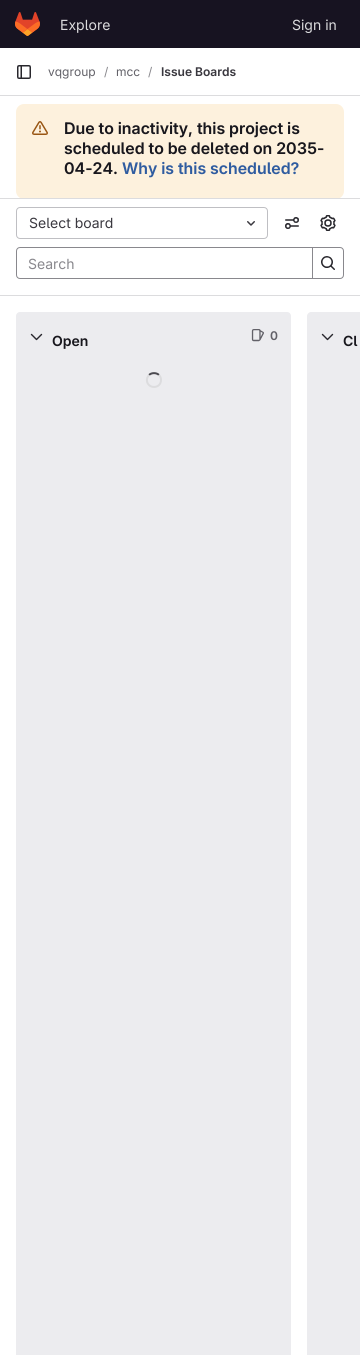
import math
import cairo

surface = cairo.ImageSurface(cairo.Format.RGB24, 360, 1355)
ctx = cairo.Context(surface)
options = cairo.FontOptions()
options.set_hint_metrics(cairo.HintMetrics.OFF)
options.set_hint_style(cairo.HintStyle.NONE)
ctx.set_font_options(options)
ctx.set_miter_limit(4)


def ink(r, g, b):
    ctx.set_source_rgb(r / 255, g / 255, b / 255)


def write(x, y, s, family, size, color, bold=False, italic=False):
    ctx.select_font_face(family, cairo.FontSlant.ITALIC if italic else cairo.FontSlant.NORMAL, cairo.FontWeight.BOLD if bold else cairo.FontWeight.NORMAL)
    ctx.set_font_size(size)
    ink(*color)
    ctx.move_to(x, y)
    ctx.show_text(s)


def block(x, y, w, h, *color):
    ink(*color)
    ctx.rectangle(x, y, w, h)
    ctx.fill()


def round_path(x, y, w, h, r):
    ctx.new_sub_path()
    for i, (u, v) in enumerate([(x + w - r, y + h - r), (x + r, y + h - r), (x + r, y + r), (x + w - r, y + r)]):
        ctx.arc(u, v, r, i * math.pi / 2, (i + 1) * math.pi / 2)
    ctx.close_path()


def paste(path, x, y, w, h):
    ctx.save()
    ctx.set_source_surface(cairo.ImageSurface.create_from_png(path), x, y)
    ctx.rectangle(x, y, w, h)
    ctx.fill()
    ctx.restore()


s1 = dict(family="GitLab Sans", size=14, color=(220, 220, 222))
s2 = dict(family="GitLab Sans", size=12, color=(98, 97, 104))
s3 = dict(family="GitLab Sans", size=12, color=(137, 136, 141))
s4 = dict(family="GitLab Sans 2 SemiBold", size=12, color=(58, 56, 63))
s5 = dict(family="GitLab Sans SemiBold", size=16, color=(24, 23, 29))
s6 = dict(family="GitLab Sans SemiBold", size=16, color=(47, 92, 160))
s7 = dict(family="GitLab Sans", size=14, color=(58, 56, 63))
s8 = dict(family="GitLab Sans", size=14, color=(137, 136, 141))
s9 = dict(family="GitLab Sans 2 SemiBold", size=14, color=(24, 23, 29))
s10 = dict(family="GitLab Sans 2 SemiBold", size=12, color=(98, 97, 104))

ink(255, 255, 255)
ctx.paint()
block(0, 0, 360, 48, 23, 19, 33)
paste("pic1.png", 15, 12, 25, 24)
write(60, 30, "Explore", **s1)
write(292, 30, "Sign in", **s1)
block(0, 95, 360, 1, 220, 220, 222)
paste("pic2.png", 17, 65, 14, 14)
write(48, 76, "vqgroup", **s2)
write(104, 76, "/", **s3)
write(116, 76, "mcc", **s2)
write(148, 76, "/", **s3)
write(161, 76, "Issue Boards", **s4)
ink(253, 241, 221)
round_path(16, 104, 328, 95, 8)
ctx.fill()
paste("pic3.png", 32, 121, 16, 14)
write(64, 134, "Due to inactivity, this project is", **s5)
write(64, 154, "scheduled to be deleted on 2035-", **s5)
write(64, 174, "04-24.", **s5)
write(122, 174, "Why is this scheduled?", **s6)
block(0, 198, 360, 1, 220, 220, 222)
block(0, 295, 360, 1, 220, 220, 222)
round_path(16.5, 207.5, 251, 31, 3.5)
ink(191, 191, 195)
ctx.set_line_width(1)
ctx.stroke()
write(29, 228, "Select board", **s7)
paste("pic4.png", 247, 221, 8, 5)
paste("pic5.png", 285, 217, 14, 12)
paste("pic6.png", 320, 215, 16, 16)
ctx.new_path()
ctx.move_to(20, 247.5)
ctx.line_to(312.5, 247.5)
ctx.line_to(312.5, 278.5)
ctx.line_to(20, 278.5)
ctx.curve_to(18, 278.5, 16.5, 277, 16.5, 275)
ctx.line_to(16.5, 251)
ctx.curve_to(16.5, 249, 18, 247.5, 20, 247.5)
ctx.close_path()
ink(137, 136, 141)
ctx.stroke()
write(28, 269, "Search", **s8)
ink(255, 255, 255)
ctx.new_path()
ctx.move_to(312.5, 247.5)
ctx.line_to(340, 247.5)
ctx.curve_to(342, 247.5, 343.5, 249, 343.5, 251)
ctx.line_to(343.5, 275)
ctx.curve_to(343.5, 277, 342, 278.5, 340, 278.5)
ctx.line_to(312.5, 278.5)
ctx.close_path()
ctx.fill_preserve()
ink(137, 136, 141)
ctx.stroke()
paste("pic7.png", 321, 256, 14, 14)
ink(236, 236, 239)
round_path(16, 312, 275, 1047, 4)
ctx.fill()
ctx.new_path()
ctx.move_to(31.5, 334.5)
ctx.line_to(36.5, 339.5)
ctx.line_to(41.5, 334.5)
ink(40, 39, 45)
ctx.set_line_width(1.4)
ctx.set_line_cap(cairo.LineCap.ROUND)
ctx.set_line_join(cairo.LineJoin.ROUND)
ctx.stroke()
write(52, 346, "Open", **s9)
paste("pic8.png", 251, 329, 13, 13)
write(270, 340, "0", **s10)
ctx.new_path()
ctx.move_to(149, 375)
ctx.curve_to(151.5, 372.5, 156.5, 372.5, 159, 375)
ink(76, 75, 81)
ctx.set_line_width(2)
ctx.set_line_cap(cairo.LineCap.BUTT)
ctx.set_line_join(cairo.LineJoin.MITER)
ctx.stroke()
ctx.new_path()
ctx.move_to(159, 375)
ctx.curve_to(160.5, 376.5, 161, 378, 161, 380)
ctx.curve_to(161, 388.5, 149, 389.5, 147, 381.5)
ctx.curve_to(146.5, 379, 147.5, 376.5, 149, 375)
ink(220, 220, 222)
ctx.stroke()
ink(236, 236, 239)
ctx.new_path()
ctx.move_to(311, 312)
ctx.line_to(360, 312)
ctx.line_to(360, 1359)
ctx.line_to(311, 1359)
ctx.curve_to(309, 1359, 307, 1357, 307, 1355)
ctx.line_to(307, 316)
ctx.curve_to(307, 314, 309, 312, 311, 312)
ctx.close_path()
ctx.fill()
ctx.new_path()
ctx.move_to(322.5, 334.5)
ctx.line_to(327.5, 339.5)
ctx.line_to(332.5, 334.5)
ink(40, 39, 45)
ctx.set_line_width(1.4)
ctx.set_line_cap(cairo.LineCap.ROUND)
ctx.set_line_join(cairo.LineJoin.ROUND)
ctx.stroke()
write(343, 346, "Cl", **s9)
surface.write_to_png("screenshot.png")
